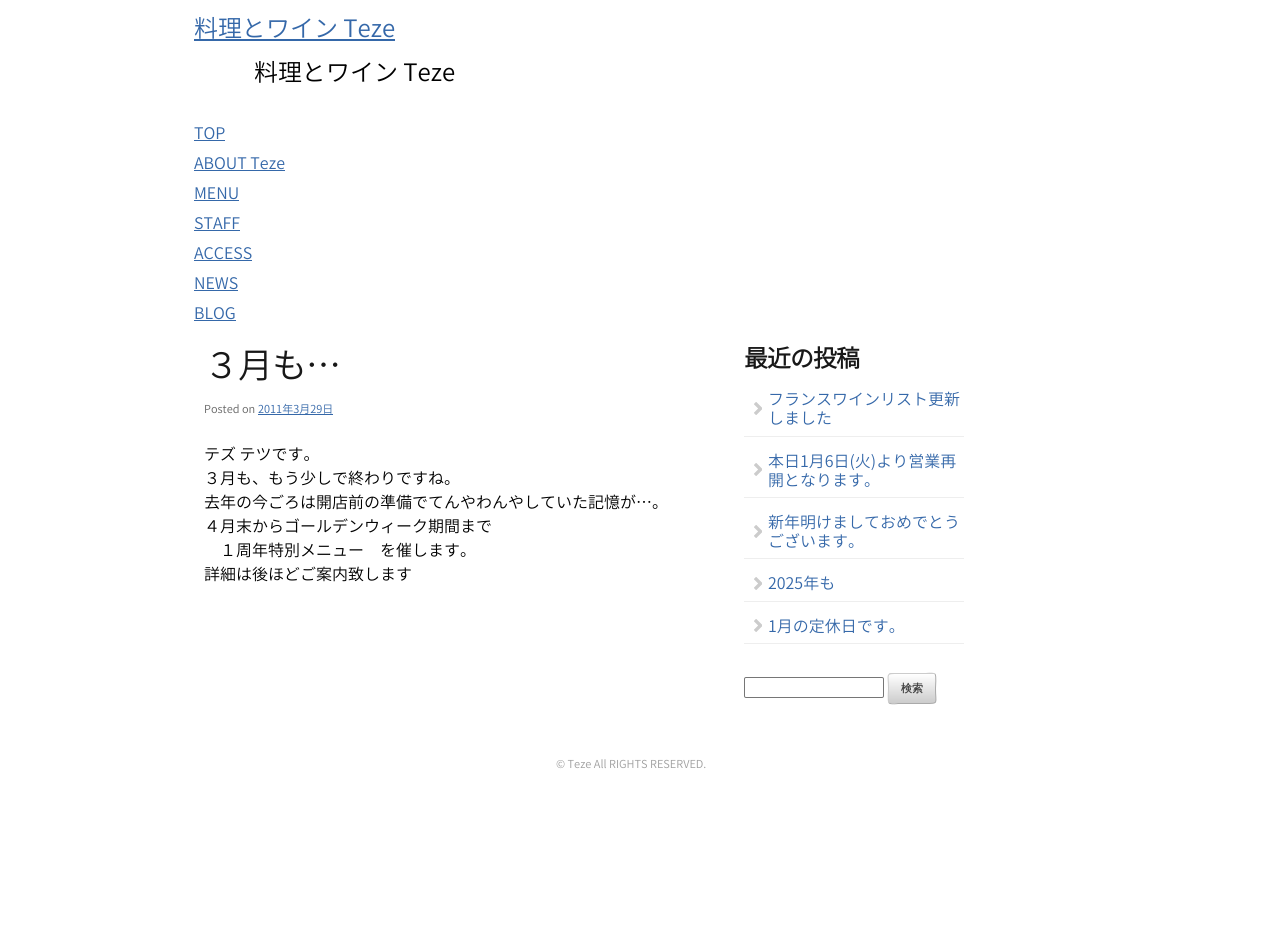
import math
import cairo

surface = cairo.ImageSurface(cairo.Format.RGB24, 1288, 932)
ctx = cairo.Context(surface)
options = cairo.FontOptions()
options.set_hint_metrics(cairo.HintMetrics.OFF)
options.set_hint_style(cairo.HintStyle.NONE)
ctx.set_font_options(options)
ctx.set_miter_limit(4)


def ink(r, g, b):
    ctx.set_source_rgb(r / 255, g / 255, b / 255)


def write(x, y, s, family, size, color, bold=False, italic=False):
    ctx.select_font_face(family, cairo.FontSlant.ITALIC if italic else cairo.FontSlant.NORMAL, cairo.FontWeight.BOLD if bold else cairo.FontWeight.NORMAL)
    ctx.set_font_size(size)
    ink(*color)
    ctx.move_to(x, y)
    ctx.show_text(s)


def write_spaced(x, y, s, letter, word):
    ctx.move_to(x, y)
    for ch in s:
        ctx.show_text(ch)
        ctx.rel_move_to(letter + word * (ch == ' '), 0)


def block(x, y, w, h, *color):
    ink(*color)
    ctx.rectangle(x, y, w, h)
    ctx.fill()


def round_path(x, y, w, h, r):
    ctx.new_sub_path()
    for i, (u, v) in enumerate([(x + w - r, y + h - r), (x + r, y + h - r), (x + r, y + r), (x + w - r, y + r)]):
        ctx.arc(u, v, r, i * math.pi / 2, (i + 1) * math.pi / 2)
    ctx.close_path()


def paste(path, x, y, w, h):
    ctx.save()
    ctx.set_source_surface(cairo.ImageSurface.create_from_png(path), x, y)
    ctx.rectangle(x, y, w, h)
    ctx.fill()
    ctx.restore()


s1 = dict(family="Noto Sans JP Light", size=24, color=(53, 104, 169))
s2 = dict(family="Noto Sans JP Light", size=24, color=(0, 0, 0))
s3 = dict(family="Noto Sans JP Light", size=16, color=(53, 104, 169))
s4 = dict(family="Noto Sans JP Light", size=11, color=(102, 102, 102))
s5 = dict(family="Noto Sans JP Light", size=11, color=(53, 104, 169))
s6 = dict(family="Noto Sans JP Light", size=16, color=(0, 0, 0))
s7 = dict(family="WenQuanYi Zen Hei", size=11, color=(68, 68, 68), bold=True)
s8 = dict(family="Noto Sans JP Light", size=11, color=(159, 159, 159))

ink(255, 255, 255)
ctx.paint()
write(194, 37, "料理とワイン Teze", **s1)
block(194, 39, 201, 2, 53, 104, 169)
write(254, 81, "料理とワイン Teze", **s2)
write(194, 139, "TOP", **s3)
block(194, 140, 31, 1, 53, 104, 169)
write(194, 169, "ABOUT Teze", **s3)
block(194, 170, 91, 1, 53, 104, 169)
write(194, 199, "MENU", **s3)
block(194, 200, 45, 1, 53, 104, 169)
write(194, 229, "STAFF", **s3)
block(194, 230, 46, 1, 53, 104, 169)
write(194, 259, "ACCESS", **s3)
block(194, 260, 58, 1, 53, 104, 169)
write(194, 289, "NEWS", **s3)
block(194, 290, 44, 1, 53, 104, 169)
write(194, 319, "BLOG", **s3)
block(194, 320, 42, 1, 53, 104, 169)
ctx.set_font_size(35)
ink(24, 24, 24)
write_spaced(204, 378, "３月も…", -1, 0)
write(204, 413, "Posted on", **s4)
write(258, 413, "2011年3月29日", **s5)
block(258, 414, 75, 1, 53, 104, 169)
write(204, 460, "テズ テツです。", **s6)
write(204, 484, "３月も、もう少しで終わりですね。", **s6)
write(204, 508, "去年の今ごろは開店前の準備でてんやわんやしていた記憶が…。", **s6)
write(204, 532, "４月末からゴールデンウィーク期間まで", **s6)
write(220, 556, "１周年特別メニュー", **s6)
write(380, 556, "を催します。", **s6)
write(204, 580, "詳細は後ほどご案内致します", **s6)
ctx.select_font_face("Noto Sans JP", cairo.FontSlant.NORMAL, cairo.FontWeight.BOLD)
ctx.set_font_size(24)
ink(24, 24, 24)
write_spaced(744, 367, "最近の投稿", -1, 0)
paste("pic1.png", 754, 402, 8, 13)
block(744, 436, 220, 1, 238, 238, 238)
write(768, 405, "フランスワインリスト更新", **s3)
write(768, 424, "しました", **s3)
paste("pic1.png", 754, 463, 8, 13)
block(744, 497, 220, 1, 238, 238, 238)
write(768, 467, "本日1月6日(火)より営業再", **s3)
write(768, 486, "開となります。", **s3)
paste("pic1.png", 754, 525, 8, 13)
block(744, 558, 220, 1, 238, 238, 238)
write(768, 528, "新年明けましておめでとう", **s3)
write(768, 547, "ございます。", **s3)
paste("pic1.png", 754, 577, 8, 13)
block(744, 601, 220, 1, 238, 238, 238)
write(768, 589, "2025年も", **s3)
paste("pic1.png", 754, 619, 8, 13)
block(744, 643, 220, 1, 238, 238, 238)
write(768, 632, "1月の定休日です。", **s3)
round_path(744.5, 677.5, 139, 20, 1.5)
ink(118, 118, 118)
ctx.set_line_width(1)
ctx.stroke()
ctx.save()
round_path(888, 673, 48, 31, 3)
ctx.clip()
gradient = cairo.LinearGradient(912, 645, 912, 674)
gradient.add_color_stop_rgba(0, 1, 1, 1, 1)
gradient.add_color_stop_rgba(1, 0.8, 0.8, 0.8, 1)
ctx.set_source(gradient)
ctx.rectangle(888, 673, 48, 1)
ctx.fill()
gradient = cairo.LinearGradient(912, 674, 912, 703)
gradient.add_color_stop_rgba(0, 1, 1, 1, 1)
gradient.add_color_stop_rgba(1, 0.8, 0.8, 0.8, 1)
ctx.set_source(gradient)
ctx.rectangle(888, 674, 48, 29)
ctx.fill()
ctx.restore()
ctx.new_path()
ctx.move_to(935, 674)
ctx.curve_to(936.5, 676, 935.5, 686, 935.5, 688.5)
ctx.curve_to(935.5, 703.5, 939, 703.5, 926, 703.5)
ctx.line_to(898, 703.5)
ctx.curve_to(898, 703.5, 891, 704.5, 889, 703)
ink(170, 170, 170)
ctx.stroke()
ctx.new_path()
ctx.move_to(889, 703)
ctx.curve_to(887.5, 701, 888.5, 691, 888.5, 688.5)
ctx.curve_to(888.5, 673.5, 885, 673.5, 898, 673.5)
ctx.line_to(926, 673.5)
ctx.curve_to(926, 673.5, 933, 672.5, 935, 674)
ink(204, 204, 204)
ctx.stroke()
write(901, 692, "検索", **s7)
write(556, 768, "© Teze All RIGHTS RESERVED.", **s8)
surface.write_to_png("screenshot.png")
